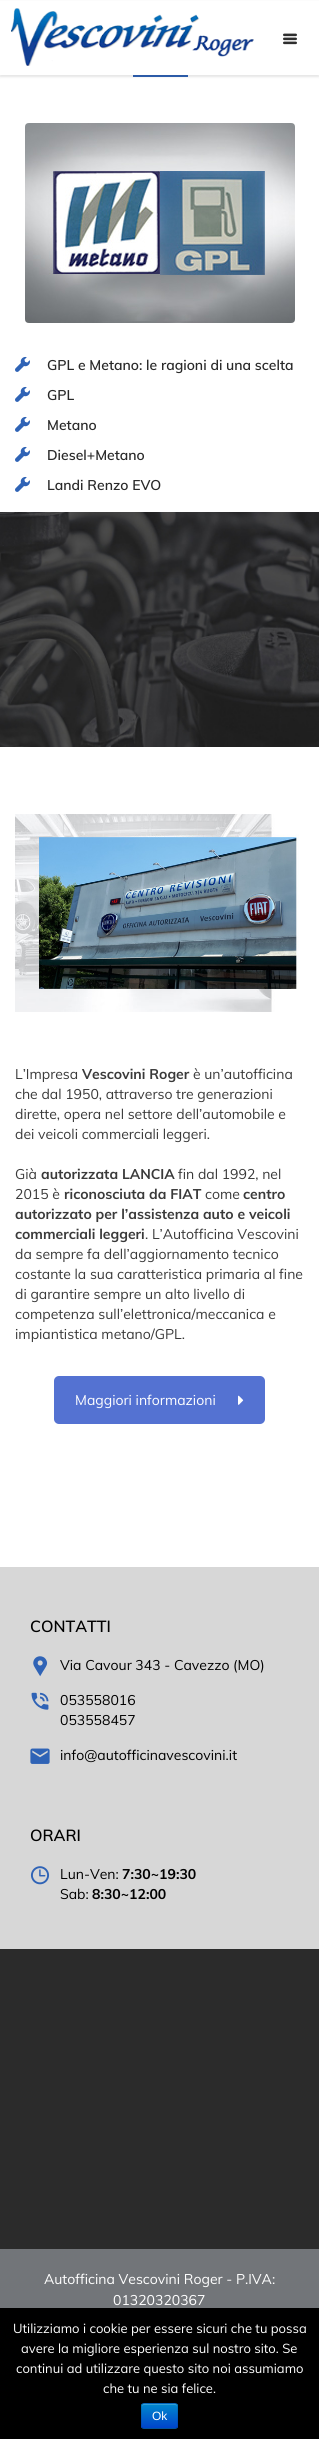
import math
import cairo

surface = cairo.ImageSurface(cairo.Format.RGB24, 319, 2439)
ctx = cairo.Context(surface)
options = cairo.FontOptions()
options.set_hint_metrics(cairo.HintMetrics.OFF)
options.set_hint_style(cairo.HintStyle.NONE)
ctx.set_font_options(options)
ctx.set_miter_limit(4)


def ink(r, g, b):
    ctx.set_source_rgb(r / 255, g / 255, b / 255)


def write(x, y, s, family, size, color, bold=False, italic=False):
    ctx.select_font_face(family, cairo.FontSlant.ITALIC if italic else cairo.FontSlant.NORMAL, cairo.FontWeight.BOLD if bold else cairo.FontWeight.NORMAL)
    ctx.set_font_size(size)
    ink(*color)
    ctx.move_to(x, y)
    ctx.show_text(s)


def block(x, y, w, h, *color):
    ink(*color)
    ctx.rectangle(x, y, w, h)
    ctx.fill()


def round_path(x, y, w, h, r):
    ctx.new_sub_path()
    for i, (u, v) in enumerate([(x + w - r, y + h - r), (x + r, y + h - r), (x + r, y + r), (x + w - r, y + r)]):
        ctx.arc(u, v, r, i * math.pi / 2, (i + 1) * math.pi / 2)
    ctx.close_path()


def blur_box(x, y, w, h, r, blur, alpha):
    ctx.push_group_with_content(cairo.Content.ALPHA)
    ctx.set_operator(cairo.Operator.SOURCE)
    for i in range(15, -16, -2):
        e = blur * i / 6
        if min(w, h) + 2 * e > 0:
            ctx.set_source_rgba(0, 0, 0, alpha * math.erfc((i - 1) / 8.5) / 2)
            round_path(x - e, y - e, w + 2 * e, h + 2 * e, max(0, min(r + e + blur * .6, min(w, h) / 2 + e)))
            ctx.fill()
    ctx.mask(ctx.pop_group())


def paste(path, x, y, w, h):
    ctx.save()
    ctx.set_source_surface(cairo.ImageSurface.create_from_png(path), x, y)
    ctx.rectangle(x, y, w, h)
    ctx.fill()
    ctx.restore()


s1 = dict(family="Muli SemiBold", size=14, color=(41, 41, 41))
s2 = dict(family="Muli", size=14, color=(58, 58, 58))
s3 = dict(family="Muli", size=14, color=(58, 58, 58), bold=True)
s4 = dict(family="Muli", size=14, color=(255, 255, 255))
s5 = dict(family="Muli SemiBold", size=16, color=(0, 0, 0))
s6 = dict(family="Muli", size=14, color=(0, 0, 0))
s7 = dict(family="Muli", size=14, color=(0, 0, 0), bold=True)
s8 = dict(family="Muli", size=13, color=(255, 255, 255))
s9 = dict(family="Liberation Sans", size=12, color=(255, 255, 255))

ink(255, 255, 255)
ctx.paint()
block(133, 75, 55, 2, 47, 99, 182)
ink(0, 0, 0)
blur_box(0, 2, 319, 75, 0, 1, 0.1)
block(0, 1, 319, 74, 255, 255, 255)
paste("pic1.png", 11, 8, 243, 58)
paste("pic2.png", 283, 33, 14, 12)
paste("pic3.png", 25, 123, 270, 200)
paste("pic4.png", 15, 356, 15, 16)
write(47, 370, "GPL e Metano: le ragioni di una scelta", **s1)
paste("pic4.png", 15, 386, 15, 16)
write(47, 400, "GPL", **s1)
paste("pic4.png", 15, 416, 15, 16)
write(47, 430, "Metano", **s1)
paste("pic4.png", 15, 446, 15, 16)
write(47, 460, "Diesel+Metano", **s1)
paste("pic4.png", 15, 476, 15, 16)
write(47, 490, "Landi Renzo EVO", **s1)
paste("pic5.png", 0, 512, 319, 235)
paste("pic6.png", 15, 814, 284, 198)
write(15, 1079, "L’Impresa", **s2)
write(82, 1079, "Vescovini Roger", **s3)
write(193, 1079, "è un’autofficina", **s2)
write(15, 1099, "che dal 1950, attraverso tre generazioni", **s2)
write(15, 1119, "dirette, opera nel settore dell’automobile e", **s2)
write(15, 1139, "dei veicoli commerciali leggeri.", **s2)
write(15, 1179, "Già", **s2)
write(41, 1179, "autorizzata LANCIA", **s3)
write(178, 1179, "fin dal 1992, nel", **s2)
write(15, 1199, "2015 è", **s2)
write(64, 1199, "riconosciuta da FIAT", **s3)
write(205, 1199, "come", **s2)
write(243, 1199, "centro", **s3)
write(15, 1219, "autorizzato per l’assistenza auto e veicoli", **s3)
write(15, 1239, "commerciali leggeri", **s3)
write(145, 1239, ". L’Autofficina Vescovini", **s2)
write(15, 1259, "da sempre fa dell’aggiornamento tecnico", **s2)
write(15, 1279, "costante la sua caratteristica primaria al fine", **s2)
write(15, 1299, "di garantire sempre un alto livello di", **s2)
write(15, 1319, "competenza sull’elettronica/meccanica e", **s2)
write(15, 1339, "impiantistica metano/GPL.", **s2)
ink(84, 114, 210)
round_path(54, 1376, 211, 48, 5)
ctx.fill()
write(75, 1405, "Maggiori informazioni", **s4)
paste("pic7.png", 238, 1395, 6, 10)
block(0, 1949, 319, 300, 43, 43, 43)
block(0, 1567, 319, 382, 215, 215, 215)
write(30, 1632, "CONTATTI", **s5)
paste("pic8.png", 33, 1656, 15, 21)
write(60, 1670, "Via Cavour 343 - Cavezzo (MO)", **s6)
paste("pic9.png", 31, 1692, 18, 18)
write(60, 1705, "053558016", **s6)
write(60, 1725, "053558457", **s6)
paste("pic10.png", 30, 1748, 20, 16)
write(60, 1760, "info@autofficinavescovini.it", **s6)
write(30, 1841, "ORARI", **s5)
paste("pic11.png", 30, 1866, 20, 19)
write(60, 1879, "Lun-Ven:", **s6)
write(122, 1879, "7:30~19:30", **s7)
write(60, 1899, "Sab:", **s6)
write(92, 1899, "8:30~12:00", **s7)
block(0, 2249, 319, 59, 114, 117, 121)
write(44, 2284, "Autofficina Vescovini Roger - P.IVA:", **s4)
write(113, 2305, "01320320367", **s4)
block(0, 2308, 319, 131, 0, 0, 0)
write(13, 2333, "Utilizziamo i cookie per essere sicuri che tu possa", **s8)
write(21, 2353, "avere la migliore esperienza sul nostro sito. Se", **s8)
write(16, 2373, "continui ad utilizzare questo sito noi assumiamo", **s8)
write(103, 2393, "che tu ne sia felice.", **s8)
ink(0, 109, 204)
round_path(141, 2403, 37, 26, 3)
ctx.fill()
ctx.save()
round_path(141, 2403, 37, 26, 3)
ctx.clip()
gradient = cairo.LinearGradient(160, 2404, 160, 2428)
gradient.add_color_stop_rgba(0, 0, 0.533, 0.8, 1)
gradient.add_color_stop_rgba(1, 0, 0.267, 0.8, 1)
ctx.set_source(gradient)
ctx.rectangle(141, 2404, 37, 24)
ctx.fill()
ctx.restore()
ctx.set_source_rgba(1, 1, 1, 0.2)
ctx.new_path()
ctx.move_to(144, 2405)
ctx.line_to(175, 2405)
ctx.curve_to(176, 2405, 177, 2406, 177, 2407)
ctx.curve_to(177, 2402.5, 173.5, 2404, 170, 2404)
ctx.line_to(149, 2404)
ctx.curve_to(145.5, 2404, 142, 2402.5, 142, 2407)
ctx.curve_to(142, 2406, 143, 2405, 144, 2405)
ctx.close_path()
ctx.fill()
ctx.new_path()
ctx.move_to(177, 2428)
ctx.curve_to(176.5, 2428, 175.5, 2428.5, 175, 2428.5)
ctx.line_to(144, 2428.5)
ctx.curve_to(143.5, 2428.5, 142.5, 2428, 142, 2428)
ctx.set_source_rgba(0, 0, 0, 0.25)
ctx.set_line_width(1)
ctx.stroke()
ctx.new_path()
ctx.move_to(142, 2428)
ctx.curve_to(142, 2427.5, 141.5, 2426.5, 141.5, 2426)
ctx.line_to(141.5, 2406)
ctx.curve_to(141.5, 2405.5, 142, 2404.5, 142, 2404)
ctx.curve_to(142.5, 2404, 143.5, 2403.5, 144, 2403.5)
ctx.line_to(175, 2403.5)
ctx.curve_to(175.5, 2403.5, 176.5, 2404, 177, 2404)
ctx.curve_to(177, 2404.5, 177.5, 2405.5, 177.5, 2406)
ctx.line_to(177.5, 2426)
ctx.curve_to(177.5, 2426.5, 177, 2427.5, 177, 2428)
ctx.set_source_rgba(0, 0, 0, 0.1)
ctx.stroke()
write(152, 2420, "Ok", **s9)
surface.write_to_png("screenshot.png")
